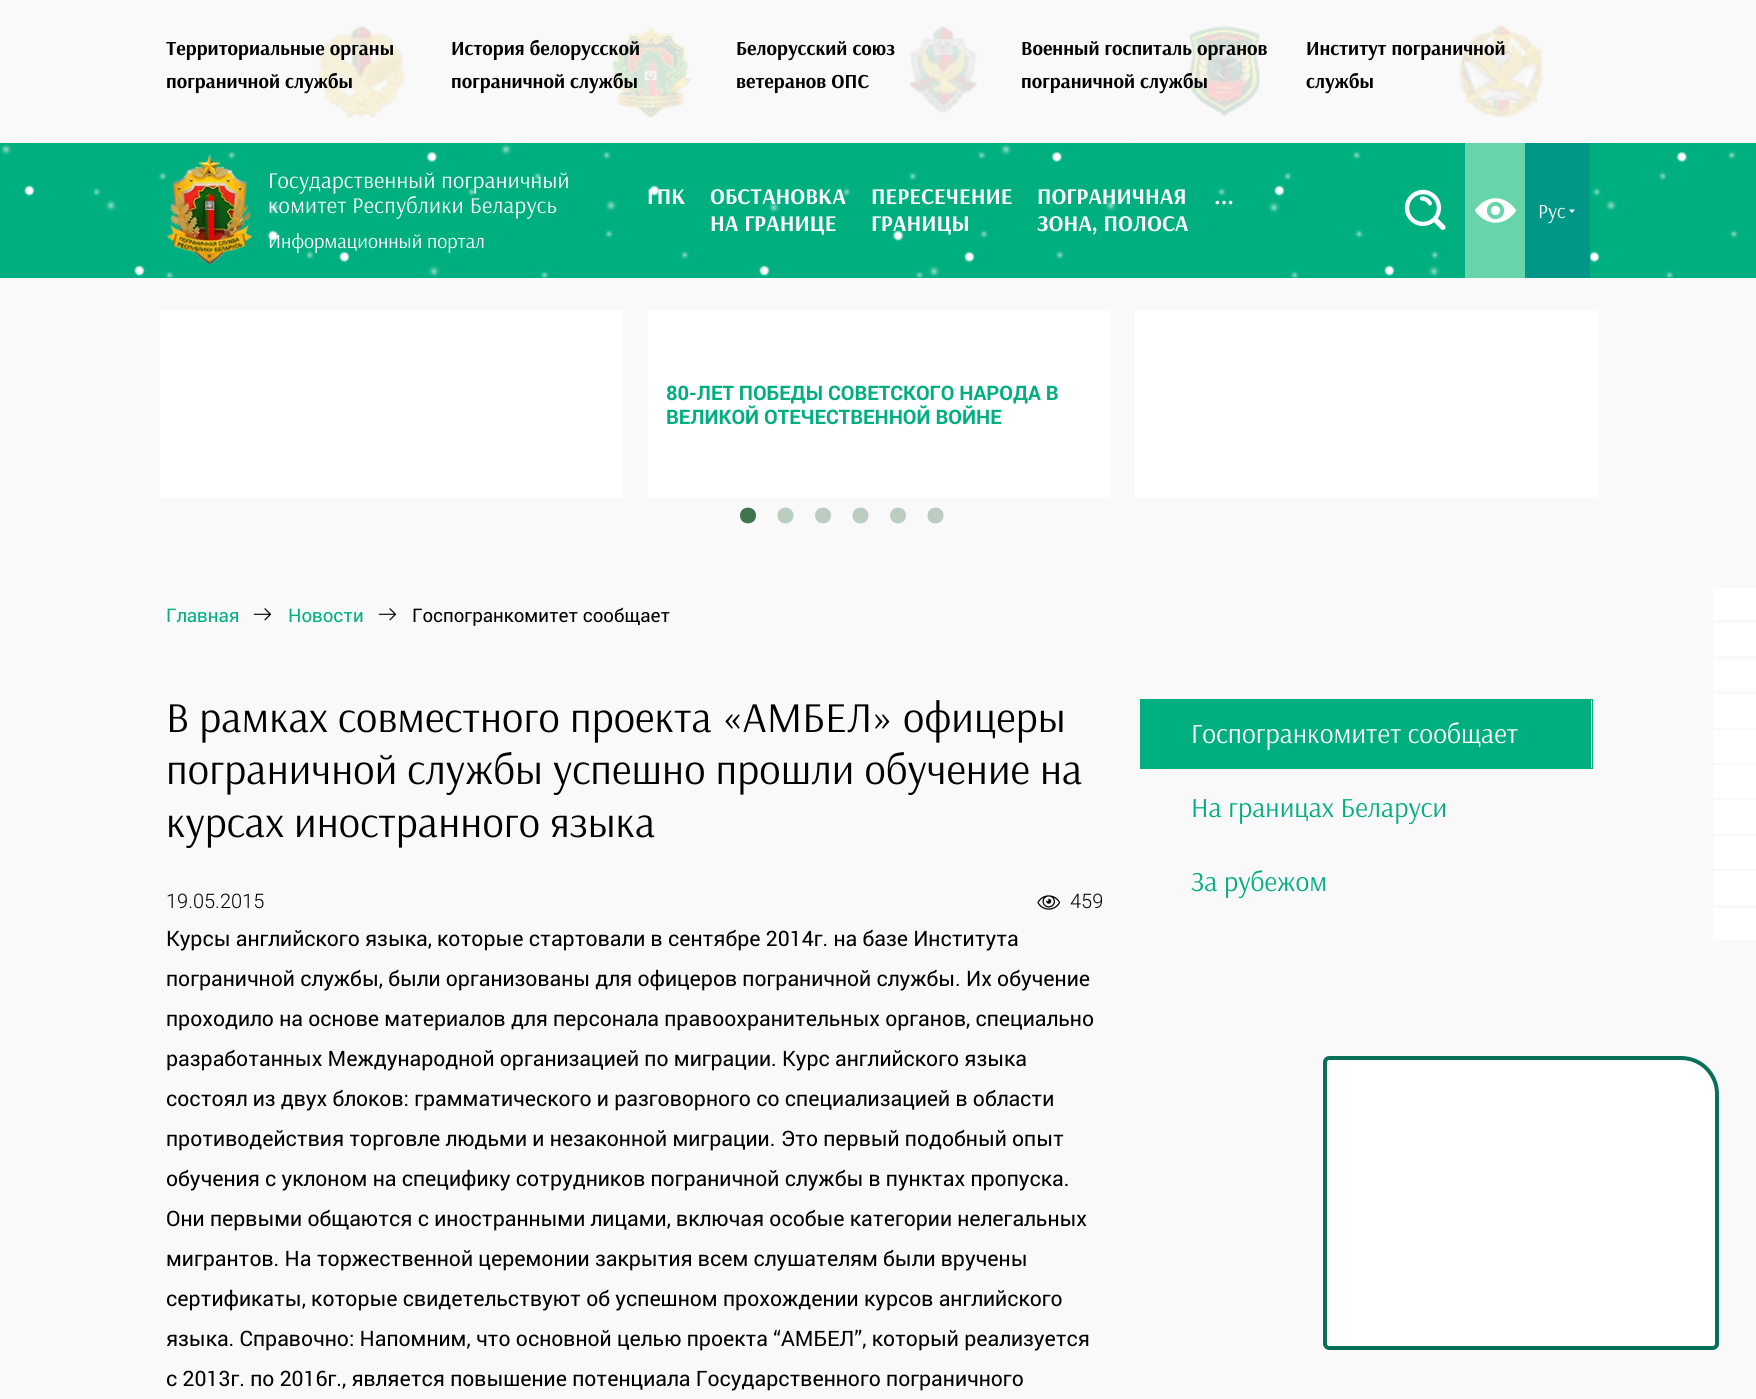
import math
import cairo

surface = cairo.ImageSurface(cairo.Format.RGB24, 1756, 1399)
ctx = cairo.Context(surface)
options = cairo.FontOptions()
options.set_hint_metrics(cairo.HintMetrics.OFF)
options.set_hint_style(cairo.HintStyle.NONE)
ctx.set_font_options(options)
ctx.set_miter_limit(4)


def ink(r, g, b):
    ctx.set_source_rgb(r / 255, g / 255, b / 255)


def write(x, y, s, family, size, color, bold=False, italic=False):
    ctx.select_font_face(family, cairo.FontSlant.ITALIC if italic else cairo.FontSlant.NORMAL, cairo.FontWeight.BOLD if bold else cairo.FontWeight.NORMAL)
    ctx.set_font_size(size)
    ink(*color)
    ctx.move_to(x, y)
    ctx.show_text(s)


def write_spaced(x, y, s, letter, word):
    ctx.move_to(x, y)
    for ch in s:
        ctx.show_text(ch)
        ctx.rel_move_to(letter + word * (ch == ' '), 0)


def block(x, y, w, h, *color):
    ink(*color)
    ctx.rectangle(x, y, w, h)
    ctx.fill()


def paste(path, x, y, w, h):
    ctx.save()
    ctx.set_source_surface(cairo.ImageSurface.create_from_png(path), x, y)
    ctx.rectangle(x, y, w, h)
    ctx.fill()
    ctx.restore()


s1 = dict(family="Arsenal", size=20, color=(0, 0, 0), bold=True)
s2 = dict(family="Arsenal", size=20, color=(255, 255, 255))
s3 = dict(family="Arsenal", size=22.5, color=(255, 255, 255), bold=True)
s4 = dict(family="Roboto", size=20, color=(0, 175, 128), bold=True)
s5 = dict(family="Roboto", size=18.75, color=(0, 175, 128))
s6 = dict(family="Roboto", size=18.75, color=(0, 0, 0))
s7 = dict(family="Roboto Light", size=20, color=(0, 0, 0))
s8 = dict(family="Roboto", size=21.25, color=(0, 0, 0))

ink(249, 249, 249)
ctx.paint()
paste("pic1.png", 317, 25, 88, 93)
write(166, 55, "Территориальные органы", **s1)
write(166, 88, "пограничной службы", **s1)
paste("pic2.png", 608, 27, 85, 91)
write(451, 55, "История белорусской", **s1)
write(451, 88, "пограничной службы", **s1)
write(736, 55, "Белорусский союз", **s1)
write(736, 88, "ветеранов ОПС", **s1)
paste("pic3.png", 909, 26, 68, 87)
paste("pic4.png", 1189, 26, 71, 90)
write(1021, 55, "Военный госпиталь органов", **s1)
write(1021, 88, "пограничной службы", **s1)
paste("pic5.png", 1459, 25, 84, 93)
write(1306, 55, "Институт пограничной", **s1)
write(1306, 88, "службы", **s1)
block(0, 143, 1756, 135, 0, 175, 128)
paste("pic6.png", 0, 143, 1739, 135)
paste("pic7.png", 167, 155, 85, 110)
ctx.select_font_face("Arsenal")
ctx.set_font_size(22.5)
ink(255, 255, 255)
write_spaced(268, 188, "Государственный пограничный", 0.3, 0)
write_spaced(268, 213, "комитет Республики Беларусь", 0.3, 0)
write(268, 248, "Информационный портал", **s2)
write(647, 204, "ГПК", **s3)
write(710, 204, "ОБСТАНОВКА", **s3)
write(710, 231, "НА ГРАНИЦЕ", **s3)
write(871, 204, "ПЕРЕСЕЧЕНИЕ", **s3)
write(871, 231, "ГРАНИЦЫ", **s3)
write(1037, 204, "ПОГРАНИЧНАЯ", **s3)
write(1037, 231, "ЗОНА, ПОЛОСА", **s3)
write(1214, 204, "...", **s3)
paste("pic8.png", 1404, 189, 42, 41)
block(1465, 143, 60, 135, 104, 212, 169)
paste("pic9.png", 1475, 198, 41, 25)
block(1525, 143, 65, 135, 0, 151, 136)
write(1538, 218, "Рус", **s2)
ctx.new_path()
ctx.move_to(1569, 209.5)
ctx.line_to(1575, 209.5)
ctx.line_to(1572, 213)
ctx.close_path()
ctx.fill()
block(160, 310, 463, 188, 255, 255, 255)
block(648, 310, 462, 188, 255, 255, 255)
write(666, 400, "80-ЛЕТ ПОБЕДЫ СОВЕТСКОГО НАРОДА В", **s4)
write(666, 424, "ВЕЛИКОЙ ОТЕЧЕСТВЕННОЙ ВОЙНЕ", **s4)
block(1135, 310, 463, 188, 255, 255, 255)
ink(62, 116, 80)
ctx.new_path()
ctx.move_to(756, 515.5)
ctx.curve_to(756, 505, 740, 505, 740, 515.5)
ctx.curve_to(740, 526, 756, 526, 756, 515.5)
ctx.close_path()
ctx.fill()
ink(187, 205, 193)
ctx.new_path()
ctx.move_to(793.5, 515.5)
ctx.curve_to(793.5, 505, 777.5, 505, 777.5, 515.5)
ctx.curve_to(777.5, 526, 793.5, 526, 793.5, 515.5)
ctx.close_path()
ctx.move_to(831, 515.5)
ctx.curve_to(831, 505, 815, 505, 815, 515.5)
ctx.curve_to(815, 526, 831, 526, 831, 515.5)
ctx.close_path()
ctx.fill()
ctx.new_path()
ctx.move_to(868.5, 515.5)
ctx.curve_to(868.5, 505, 852.5, 505, 852.5, 515.5)
ctx.curve_to(852.5, 526, 868.5, 526, 868.5, 515.5)
ctx.close_path()
ctx.move_to(906, 515.5)
ctx.curve_to(906, 505, 890, 505, 890, 515.5)
ctx.curve_to(890, 526, 906, 526, 906, 515.5)
ctx.close_path()
ctx.fill()
ctx.new_path()
ctx.move_to(943.5, 515.5)
ctx.curve_to(943.5, 505, 927.5, 505, 927.5, 515.5)
ctx.curve_to(927.5, 526, 943.5, 526, 943.5, 515.5)
ctx.close_path()
ctx.fill()
write(166, 622, "Главная", **s5)
paste("pic10.png", 253, 608, 18, 13)
write(288, 622, "Новости", **s5)
paste("pic10.png", 378, 608, 18, 13)
write(412, 622, "Госпогранкомитет сообщает", **s6)
ctx.select_font_face("Arsenal")
ctx.set_font_size(42.5)
write_spaced(166, 732, "В рамках совместного проекта «АМБЕЛ» офицеры", 0.1, 0)
write_spaced(166, 784, "пограничной службы успешно прошли обучение на", 0.1, 0)
write_spaced(166, 837, "курсах иностранного языка", 0.1, 0)
write(166, 908, "19.05.2015", **s7)
paste("pic11.png", 1037, 895, 23, 15)
write(1070, 908, "459", **s7)
write(166, 946, "Курсы английского языка, которые стартовали в сентябре 2014г. на базе Института", **s8)
write(166, 986, "пограничной службы, были организованы для офицеров пограничной службы. Их обучение", **s8)
write(166, 1026, "проходило на основе материалов для персонала правоохранительных органов, специально", **s8)
write(166, 1066, "разработанных Международной организацией по миграции. Курс английского языка", **s8)
write(166, 1106, "состоял из двух блоков: грамматического и разговорного со специализацией в области", **s8)
write(166, 1146, "противодействия торговле людьми и незаконной миграции. Это первый подобный опыт", **s8)
write(166, 1186, "обучения с уклоном на специфику сотрудников пограничной службы в пунктах пропуска.", **s8)
write(166, 1226, "Они первыми общаются с иностранными лицами, включая особые категории нелегальных", **s8)
write(166, 1266, "мигрантов. На торжественной церемонии закрытия всем слушателям были вручены", **s8)
write(166, 1306, "сертификаты, которые свидетельствуют об успешном прохождении курсов английского", **s8)
write(166, 1346, "языка. Справочно: Напомним, что основной целью проекта “АМБЕЛ”, который реализуется", **s8)
write(166, 1386, "с 2013г. по 2016г., является повышение потенциала Государственного пограничного", **s8)
block(1141, 700, 450, 68, 0, 175, 128)
ctx.rectangle(1140.5, 699.5, 452, 69)
ctx.set_line_width(1)
ctx.stroke()
ctx.select_font_face("Arsenal")
ctx.set_font_size(27.5)
ink(255, 255, 255)
write_spaced(1191, 743, "Госпогранкомитет сообщает", 0.05, 0)
ink(0, 175, 128)
write_spaced(1191, 817, "На границах Беларуси", 0.05, 0)
write_spaced(1191, 891, "За рубежом", 0.05, 0)
block(1713, 588, 43, 32, 255, 255, 255)
block(1713, 623, 43, 33, 255, 255, 255)
block(1713, 659, 43, 32, 255, 255, 255)
block(1713, 694, 43, 34, 255, 255, 255)
block(1713, 730, 43, 33, 255, 255, 255)
block(1713, 765, 43, 33, 255, 255, 255)
block(1713, 800, 43, 34, 255, 255, 255)
block(1713, 836, 43, 33, 255, 255, 255)
block(1713, 871, 43, 34, 255, 255, 255)
block(1713, 908, 43, 32, 255, 255, 255)
ctx.new_path()
ctx.move_to(1329, 1058)
ctx.line_to(1681, 1058)
ctx.curve_to(1701, 1058, 1717, 1074, 1717, 1094)
ctx.line_to(1717, 1344)
ctx.curve_to(1717, 1346, 1715, 1348, 1713, 1348)
ctx.line_to(1329, 1348)
ctx.curve_to(1327, 1348, 1325, 1346, 1325, 1344)
ctx.line_to(1325, 1062)
ctx.curve_to(1325, 1060, 1327, 1058, 1329, 1058)
ctx.close_path()
ctx.fill_preserve()
ink(10, 111, 89)
ctx.set_line_width(4)
ctx.stroke()
surface.write_to_png("screenshot.png")
